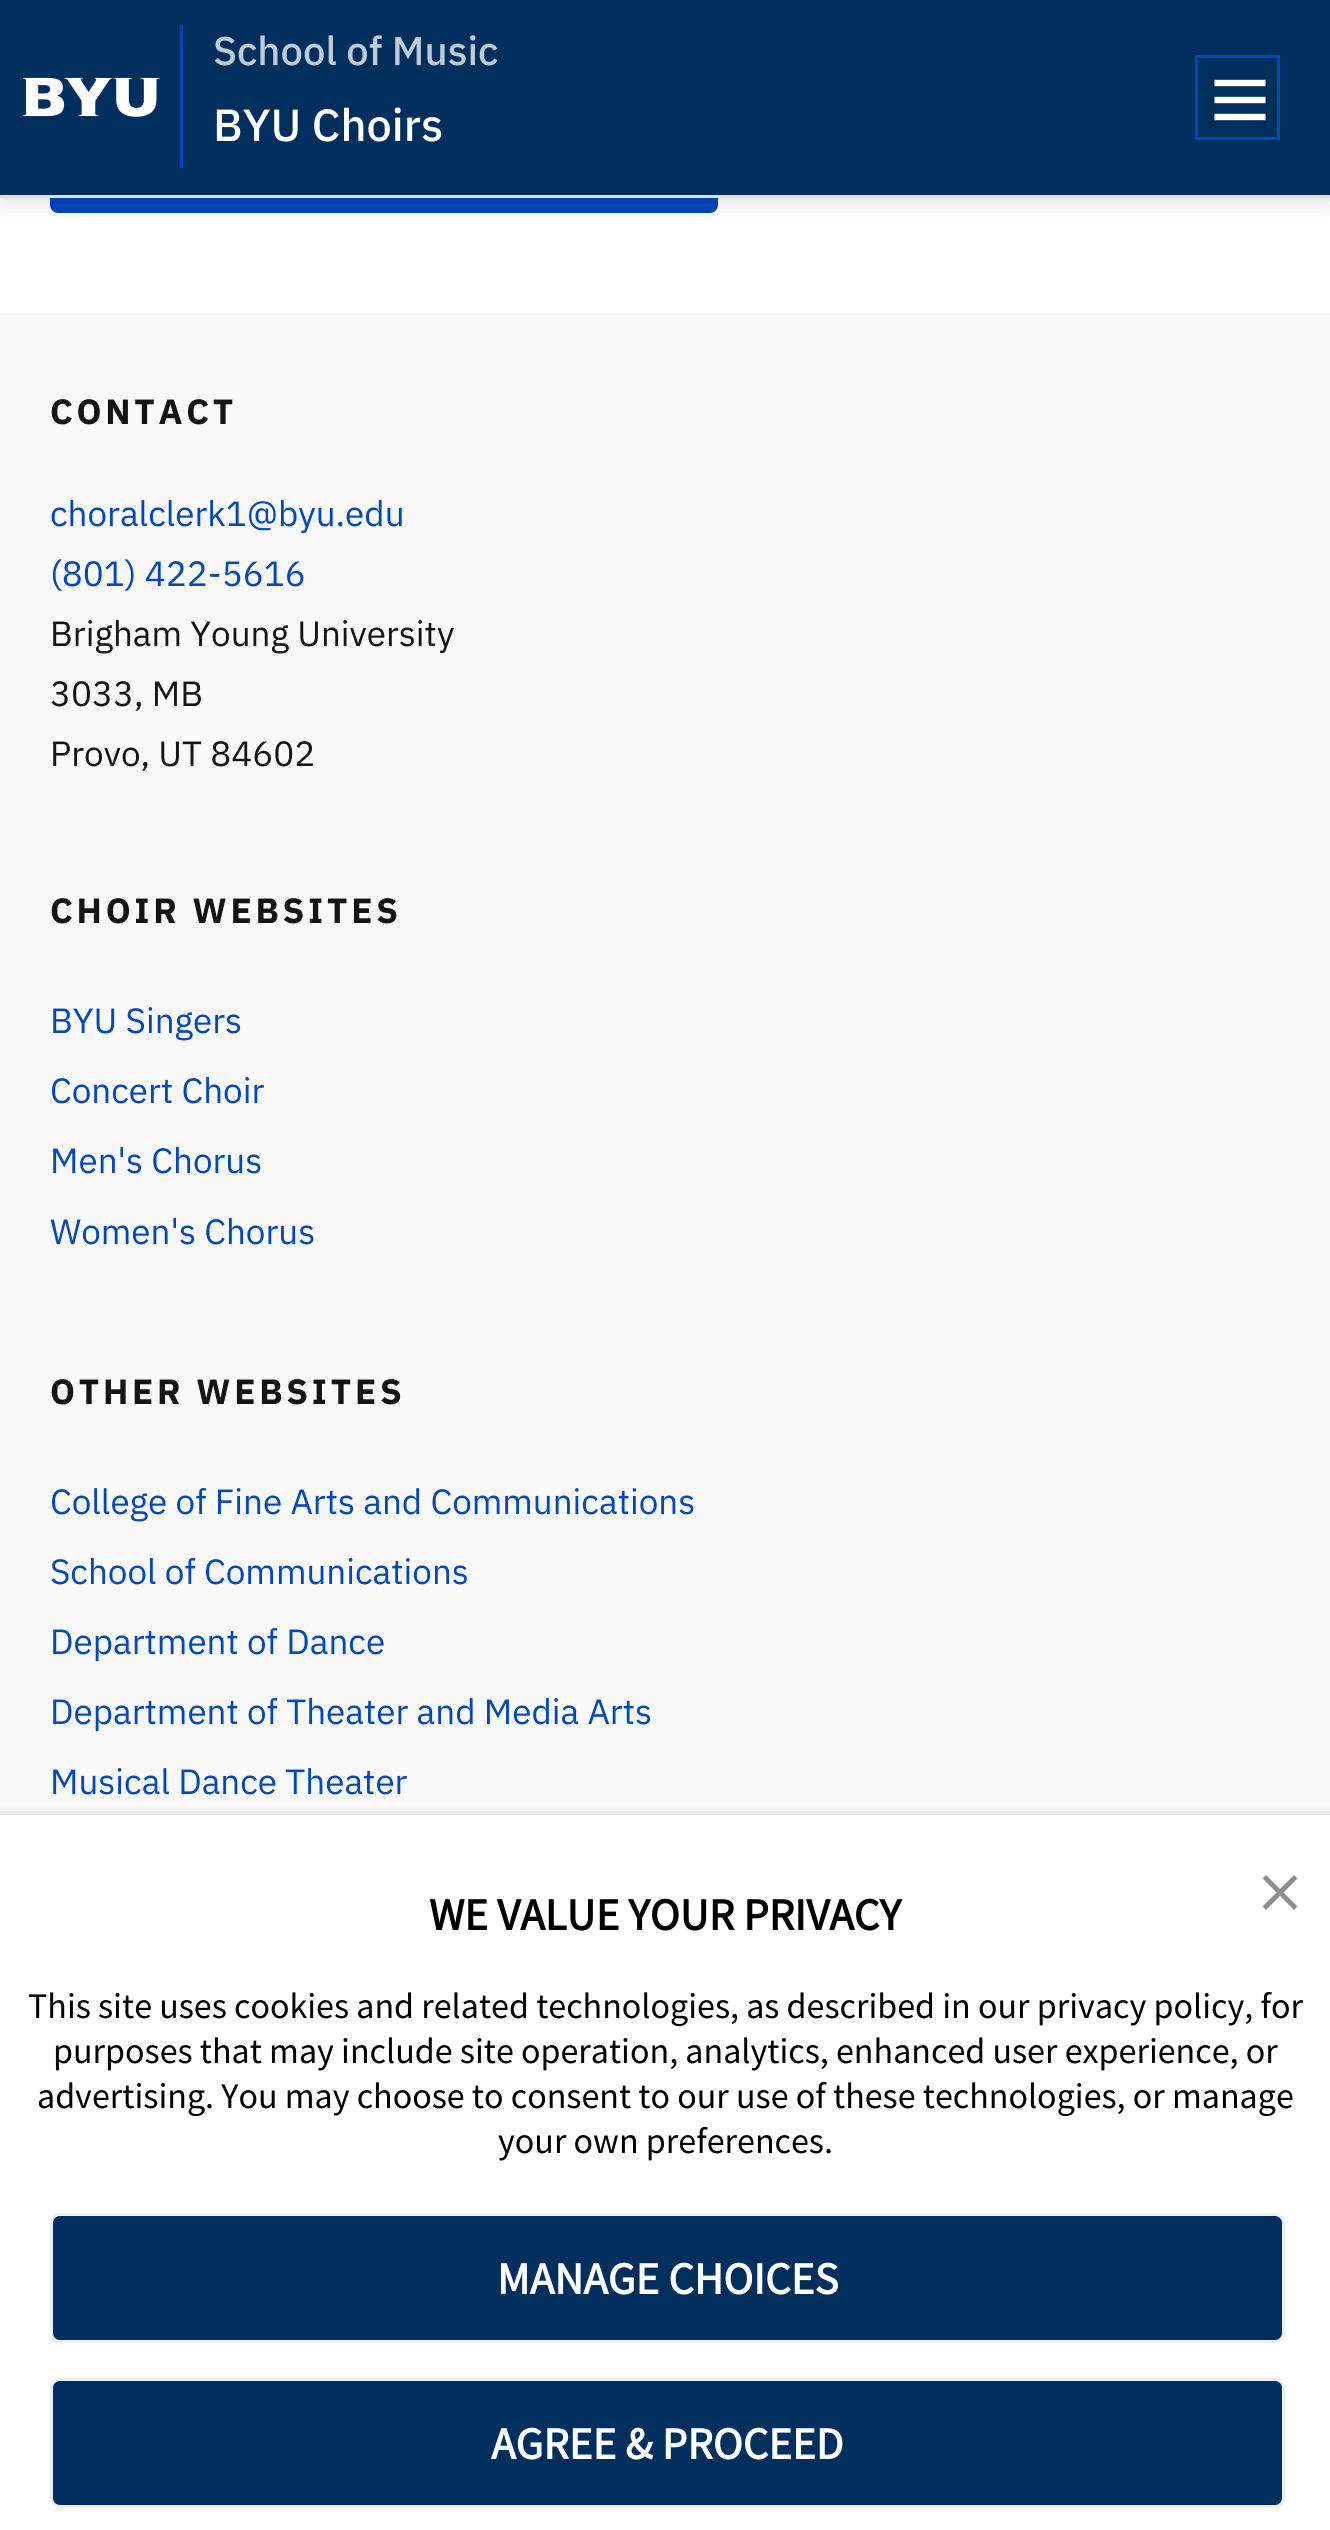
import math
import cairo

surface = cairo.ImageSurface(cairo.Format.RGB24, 1330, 2530)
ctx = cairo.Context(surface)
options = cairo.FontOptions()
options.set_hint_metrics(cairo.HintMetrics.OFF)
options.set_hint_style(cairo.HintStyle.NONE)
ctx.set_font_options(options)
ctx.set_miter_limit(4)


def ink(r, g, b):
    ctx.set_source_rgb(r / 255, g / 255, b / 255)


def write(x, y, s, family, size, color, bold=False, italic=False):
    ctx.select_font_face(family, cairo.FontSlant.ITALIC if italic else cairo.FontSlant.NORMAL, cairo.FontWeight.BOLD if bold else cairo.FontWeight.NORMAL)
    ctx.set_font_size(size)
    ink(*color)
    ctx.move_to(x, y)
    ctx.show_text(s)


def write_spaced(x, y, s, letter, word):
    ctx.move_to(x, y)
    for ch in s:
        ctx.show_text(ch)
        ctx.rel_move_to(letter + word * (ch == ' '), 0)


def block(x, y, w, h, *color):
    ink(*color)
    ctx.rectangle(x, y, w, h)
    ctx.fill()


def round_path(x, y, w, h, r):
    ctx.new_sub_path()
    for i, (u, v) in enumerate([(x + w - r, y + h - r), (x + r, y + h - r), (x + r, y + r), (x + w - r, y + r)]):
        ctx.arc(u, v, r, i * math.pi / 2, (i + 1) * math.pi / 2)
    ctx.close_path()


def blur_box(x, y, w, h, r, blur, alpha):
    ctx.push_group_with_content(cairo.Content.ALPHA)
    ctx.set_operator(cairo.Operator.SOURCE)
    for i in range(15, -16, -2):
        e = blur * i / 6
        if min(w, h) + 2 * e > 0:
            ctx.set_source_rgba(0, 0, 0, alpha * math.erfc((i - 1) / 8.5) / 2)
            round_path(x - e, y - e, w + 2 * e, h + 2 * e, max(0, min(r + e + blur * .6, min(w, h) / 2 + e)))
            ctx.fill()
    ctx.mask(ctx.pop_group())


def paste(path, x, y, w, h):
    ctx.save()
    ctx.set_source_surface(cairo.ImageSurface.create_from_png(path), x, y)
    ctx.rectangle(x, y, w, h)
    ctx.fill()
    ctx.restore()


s1 = dict(family="IBM Plex Sans Medium", size=40, color=(191, 203, 215))
s2 = dict(family="IBM Plex Sans Medium", size=45, color=(255, 255, 255))
s3 = dict(family="IBM Plex Sans", size=35, color=(0, 71, 186))
s4 = dict(family="IBM Plex Sans", size=35, color=(20, 20, 20))
s5 = dict(family="Source Sans Pro", size=45, color=(0, 0, 0), bold=True)
s6 = dict(family="Source Sans Pro", size=36, color=(0, 0, 0))
s7 = dict(family="Source Sans Pro", size=45, color=(255, 255, 255), bold=True)

ink(255, 255, 255)
ctx.paint()
ink(0, 71, 186)
round_path(51.5, 91.5, 665, 120, 6.5)
ctx.fill_preserve()
ctx.set_line_width(3)
ctx.stroke()
ink(0, 0, 0)
blur_box(0, 0, 1330, 198, 0, 12.5, 0.16)
block(0, 195, 1330, 3, 221, 221, 221)
block(0, 0, 1330, 195, 0, 46, 93)
paste("pic1.png", 23, 77, 137, 40)
write(213, 65, "School of Music", **s1)
block(180, 25, 3, 143, 0, 71, 186)
write(213, 141, "BYU Choirs", **s2)
ctx.rectangle(1196.5, 56.5, 82, 82)
ink(0, 71, 186)
ctx.stroke()
ctx.new_path()
ctx.move_to(1214.5, 83)
ctx.line_to(1265.5, 83)
ctx.move_to(1214.5, 100)
ctx.line_to(1265.5, 100)
ctx.move_to(1214.5, 117)
ctx.line_to(1265.5, 117)
ink(255, 255, 255)
ctx.set_line_width(6.4)
ctx.stroke()
block(0, 313, 1330, 1502, 249, 249, 249)
ctx.select_font_face("IBM Plex Sans", cairo.FontSlant.NORMAL, cairo.FontWeight.BOLD)
ctx.set_font_size(35)
ink(20, 20, 20)
write_spaced(50, 424, "CONTACT", 3.75, 0)
write(50, 526, "choralclerk1@byu.edu", **s3)
write(50, 586, "(801) 422-5616", **s3)
write(50, 646, "Brigham Young University", **s4)
write(50, 706, "3033, MB", **s4)
write(50, 766, "Provo, UT 84602", **s4)
ctx.select_font_face("IBM Plex Sans", cairo.FontSlant.NORMAL, cairo.FontWeight.BOLD)
write_spaced(50, 923, "CHOIR WEBSITES", 3.75, 0)
write(50, 1033, "BYU Singers", **s3)
write(50, 1103, "Concert Choir", **s3)
write(50, 1173, "Men's Chorus", **s3)
write(50, 1244, "Women's Chorus", **s3)
ctx.select_font_face("IBM Plex Sans", cairo.FontSlant.NORMAL, cairo.FontWeight.BOLD)
ink(20, 20, 20)
write_spaced(50, 1404, "OTHER WEBSITES", 3.75, 0)
write(50, 1514, "College of Fine Arts and Communications", **s3)
write(50, 1584, "School of Communications", **s3)
write(50, 1654, "Department of Dance", **s3)
write(50, 1724, "Department of Theater and Media Arts", **s3)
write(50, 1794, "Musical Dance Theater", **s3)
ink(0, 0, 0)
blur_box(0, 1815, 1330, 715, 0, 5, 0.2)
block(0, 1815, 1330, 715, 255, 255, 255)
ink(143, 143, 143)
ctx.set_fill_rule(cairo.FillRule.EVEN_ODD)
ctx.new_path()
ctx.move_to(1297.5, 1878.5)
ctx.line_to(1283.5, 1892.5)
ctx.line_to(1297.5, 1906.5)
ctx.line_to(1294, 1910)
ctx.line_to(1280, 1896)
ctx.line_to(1266, 1910)
ctx.line_to(1262.5, 1906.5)
ctx.line_to(1276.5, 1892.5)
ctx.line_to(1262.5, 1878.5)
ctx.line_to(1266, 1875)
ctx.line_to(1280, 1889)
ctx.line_to(1294, 1875)
ctx.close_path()
ctx.fill()
write(429, 1930, "WE VALUE YOUR PRIVACY", **s5)
write(28, 2018, "This site uses cookies and related technologies, as described in our privacy policy, for", **s6)
write(53, 2063, "purposes that may include site operation, analytics, enhanced user experience, or", **s6)
write(37, 2108, "advertising. You may choose to consent to our use of these technologies, or manage", **s6)
write(498, 2153, "your own preferences.", **s6)
ink(0, 46, 93)
round_path(51.5, 2214.5, 1232, 127, 8.5)
ctx.fill_preserve()
ink(238, 238, 238)
ctx.set_line_width(3)
ctx.stroke()
write(497, 2294, "MANAGE CHOICES", **s7)
ink(0, 46, 93)
round_path(51.5, 2379.5, 1232, 127, 8.5)
ctx.fill_preserve()
ink(238, 238, 238)
ctx.stroke()
write(491, 2459, "AGREE & PROCEED", **s7)
surface.write_to_png("screenshot.png")
